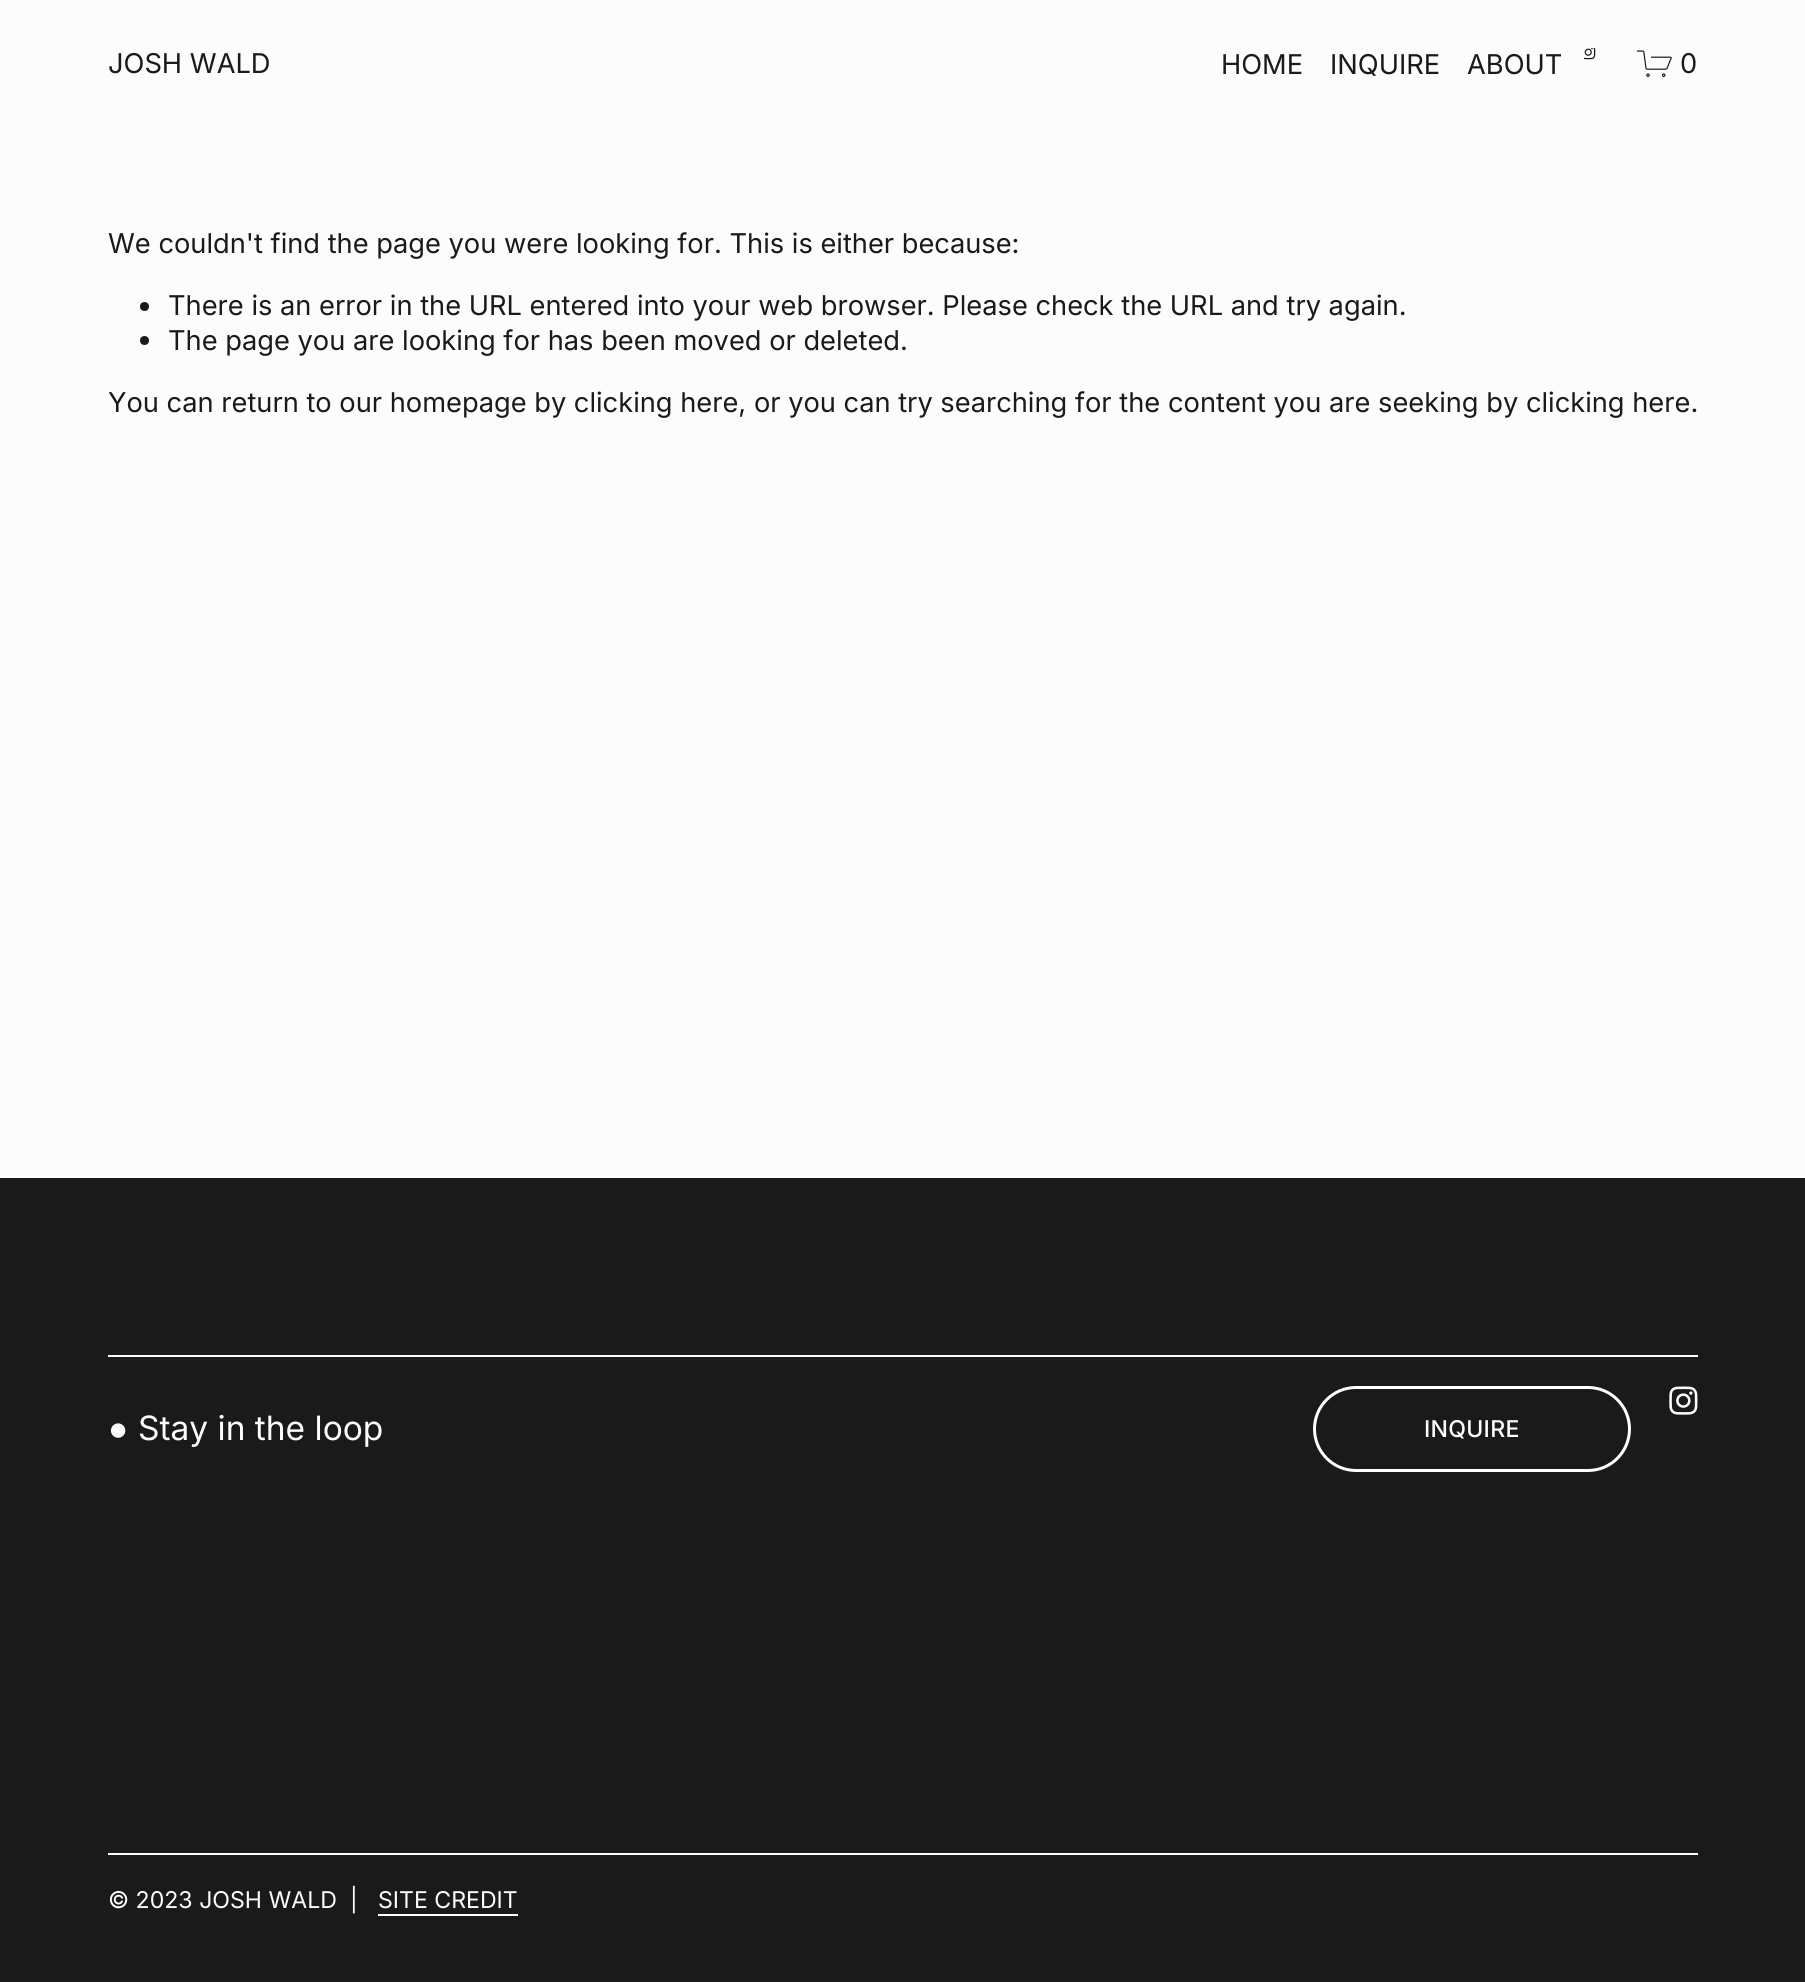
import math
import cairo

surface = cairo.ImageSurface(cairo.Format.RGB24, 1805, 1982)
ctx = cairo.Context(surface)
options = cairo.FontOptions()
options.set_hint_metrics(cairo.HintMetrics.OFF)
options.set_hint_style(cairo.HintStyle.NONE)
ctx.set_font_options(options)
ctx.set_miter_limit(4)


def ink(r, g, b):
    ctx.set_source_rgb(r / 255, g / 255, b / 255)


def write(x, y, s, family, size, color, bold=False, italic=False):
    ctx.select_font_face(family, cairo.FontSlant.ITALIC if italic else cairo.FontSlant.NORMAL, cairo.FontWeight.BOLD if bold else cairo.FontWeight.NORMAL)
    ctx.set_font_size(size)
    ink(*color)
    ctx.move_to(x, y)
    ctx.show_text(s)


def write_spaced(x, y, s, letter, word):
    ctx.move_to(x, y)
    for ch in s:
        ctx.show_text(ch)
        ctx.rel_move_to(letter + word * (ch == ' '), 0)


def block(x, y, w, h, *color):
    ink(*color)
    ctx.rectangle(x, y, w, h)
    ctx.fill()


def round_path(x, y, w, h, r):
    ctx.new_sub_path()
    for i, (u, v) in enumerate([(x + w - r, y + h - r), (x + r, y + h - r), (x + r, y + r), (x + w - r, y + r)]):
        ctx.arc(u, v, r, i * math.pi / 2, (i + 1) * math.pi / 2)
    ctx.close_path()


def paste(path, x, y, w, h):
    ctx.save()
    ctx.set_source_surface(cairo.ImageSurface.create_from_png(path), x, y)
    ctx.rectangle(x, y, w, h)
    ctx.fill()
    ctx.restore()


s1 = dict(family="Inter", size=27.25, color=(26, 26, 26))
s2 = dict(family="Liberation Serif", size=33.5, color=(253, 252, 252))
s3 = dict(family="Inter", size=33.5, color=(253, 252, 252))
s4 = dict(family="Inter", size=23.1, color=(253, 252, 252))

ink(253, 252, 252)
ctx.paint()
write(108, 73, "JOSH WALD", **s1)
write(1221, 74, "HOME", **s1)
write(1330, 74, "INQUIRE", **s1)
write(1467, 74, "ABOUT", **s1)
paste("pic1.png", 1584, 48, 12, 12)
paste("pic2.png", 1637, 50, 35, 27)
write(1680, 73, "0", **s1)
write(108, 253, "We couldn't find the page you were looking for. This is either because:", **s1)
ctx.new_path()
ctx.arc(144.5, 306.5, 4.5, 0, 2 * math.pi)
ctx.fill()
write(168, 315, "There is an error in the URL entered into your web browser. Please check the URL and try again.", **s1)
ctx.new_path()
ctx.arc(144.5, 340.5, 4.5, 0, 2 * math.pi)
ctx.fill()
write(168, 350, "The page you are looking for has been moved or deleted.", **s1)
write(108, 412, "You can return to our homepage by clicking here, or you can try searching for the", **s1)
write(1168, 412, "content you are seeking by clicking here.", **s1)
block(0, 1178, 1805, 804, 26, 26, 26)
block(108, 1355, 1590, 2, 253, 252, 252)
paste("pic3.png", 1669, 1386, 29, 29)
write(108, 1440, "●", **s2)
write(138, 1440, "Stay in the loop", **s3)
round_path(1314.5, 1387.5, 315, 83, 41.5)
ink(255, 255, 255)
ctx.set_line_width(3)
ctx.stroke()
ctx.select_font_face("Inter Medium")
ctx.set_font_size(23.1)
ink(253, 252, 252)
write_spaced(1424, 1437, "INQUIRE", 0.25, 0)
block(108, 1853, 1590, 2, 253, 252, 252)
write(108, 1908, "© 2023 JOSH WALD  |", **s4)
block(378, 1914, 140, 2, 255, 255, 255)
write(378, 1908, "SITE CREDIT", **s4)
surface.write_to_png("screenshot.png")
